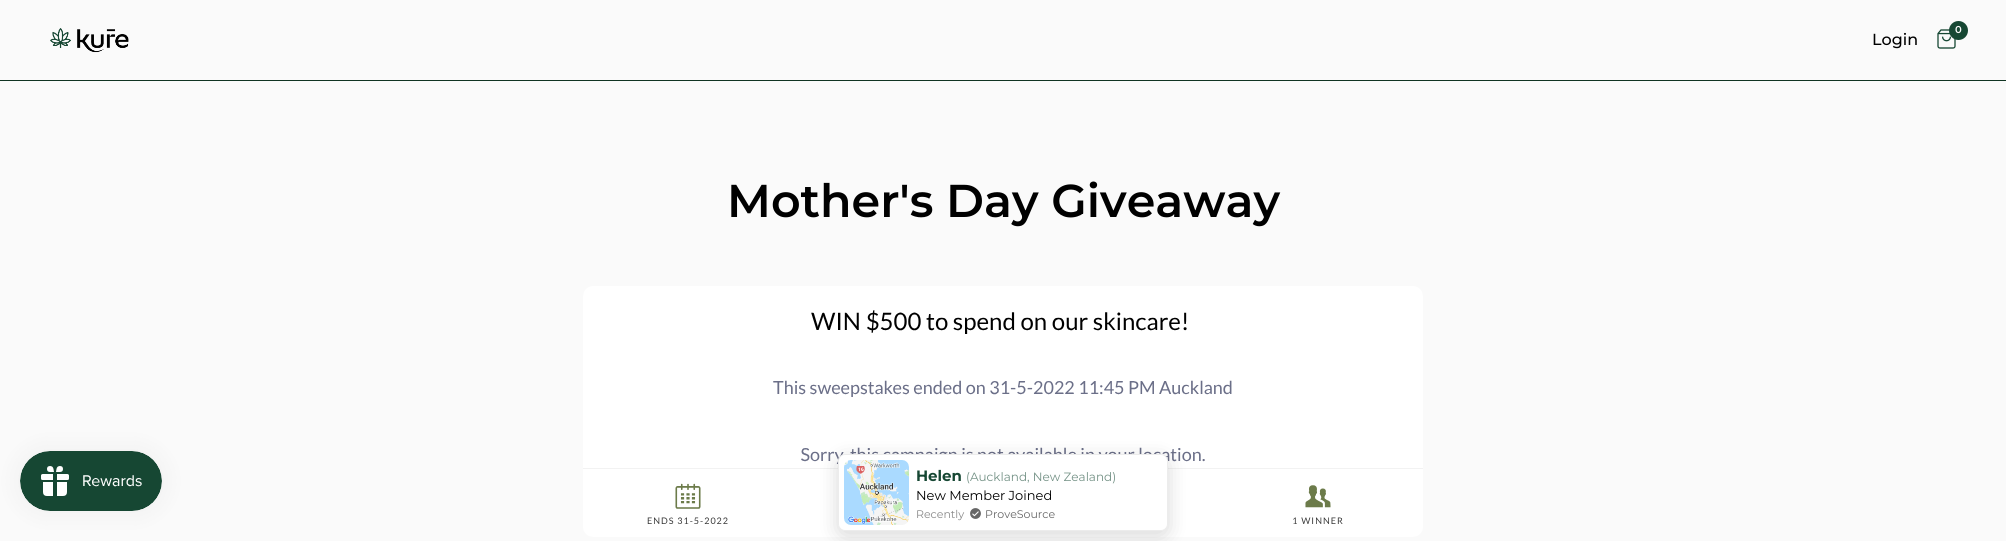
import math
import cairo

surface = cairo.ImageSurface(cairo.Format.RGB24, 2006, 541)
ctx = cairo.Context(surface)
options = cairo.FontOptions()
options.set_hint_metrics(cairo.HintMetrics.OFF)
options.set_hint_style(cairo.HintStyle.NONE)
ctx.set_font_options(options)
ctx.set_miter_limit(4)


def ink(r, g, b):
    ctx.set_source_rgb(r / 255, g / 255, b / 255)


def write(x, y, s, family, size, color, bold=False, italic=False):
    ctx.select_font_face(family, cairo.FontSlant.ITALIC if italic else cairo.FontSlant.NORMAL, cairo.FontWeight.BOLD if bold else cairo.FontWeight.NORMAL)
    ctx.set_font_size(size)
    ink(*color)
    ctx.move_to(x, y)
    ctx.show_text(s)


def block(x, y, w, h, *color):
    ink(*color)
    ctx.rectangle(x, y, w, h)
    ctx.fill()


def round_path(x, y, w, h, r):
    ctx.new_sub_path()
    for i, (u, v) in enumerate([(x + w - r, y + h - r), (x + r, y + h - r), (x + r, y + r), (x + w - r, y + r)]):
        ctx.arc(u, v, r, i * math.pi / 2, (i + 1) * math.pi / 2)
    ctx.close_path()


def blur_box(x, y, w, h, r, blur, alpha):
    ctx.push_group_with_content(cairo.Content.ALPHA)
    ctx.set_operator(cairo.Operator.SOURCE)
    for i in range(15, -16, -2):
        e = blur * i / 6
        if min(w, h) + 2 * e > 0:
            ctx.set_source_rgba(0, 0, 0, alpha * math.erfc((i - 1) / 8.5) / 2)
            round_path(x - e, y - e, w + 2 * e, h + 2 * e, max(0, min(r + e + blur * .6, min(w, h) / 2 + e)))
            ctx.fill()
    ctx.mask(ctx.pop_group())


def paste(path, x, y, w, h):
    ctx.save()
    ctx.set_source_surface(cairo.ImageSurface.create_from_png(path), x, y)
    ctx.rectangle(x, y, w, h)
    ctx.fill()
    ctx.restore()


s1 = dict(family="Montserrat Thin", size=10, color=(250, 250, 250))
s2 = dict(family="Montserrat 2 Thin", size=16, color=(0, 0, 0))
s3 = dict(family="Montserrat Thin", size=46, color=(0, 0, 0))
s4 = dict(family="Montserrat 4 Thin", size=15, color=(22, 71, 51))
s5 = dict(family="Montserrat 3 Thin", size=12, color=(115, 145, 133))
s6 = dict(family="Montserrat 3 Thin", size=13, color=(0, 0, 0))
s7 = dict(family="Montserrat 3 Thin", size=11, color=(136, 136, 136))
s8 = dict(family="Montserrat 3 Thin", size=11, color=(102, 102, 102))

ink(250, 250, 250)
ctx.paint()
block(0, 80, 2006, 1, 16, 52, 34)
paste("pic1.png", 50, 28, 79, 25)
paste("pic2.png", 1937, 29, 19, 20)
ink(22, 71, 51)
ctx.arc(1958.5, 30.5, 9.5, 0, 2 * math.pi)
ctx.fill()
write(1955, 33, "0", **s1)
write(1872, 45, "Login", **s2)
write(727, 217, "Mother's Day Giveaway", **s3)
paste("pic3.png", 583, 286, 840, 251)
ink(0, 0, 0)
blur_box(20, 451, 142, 60, 30, 12.5, 0.05)
paste("pic4.png", 20, 451, 142, 60)
blur_box(838, 459, 330, 77, 7, 10, 0.15)
ink(255, 255, 255)
round_path(838.5, 454.5, 329, 76, 6.5)
ctx.fill_preserve()
ink(236, 236, 236)
ctx.set_line_width(1)
ctx.stroke()
paste("pic5.png", 844, 460, 65, 65)
write(916, 481, "Helen", **s4)
write(966, 481, "(Auckland, New Zealand)", **s5)
write(916, 500, "New Member Joined", **s6)
write(916, 518, "Recently", **s7)
paste("pic6.png", 970, 508, 11, 11)
write(985, 518, "ProveSource", **s8)
surface.write_to_png("screenshot.png")
